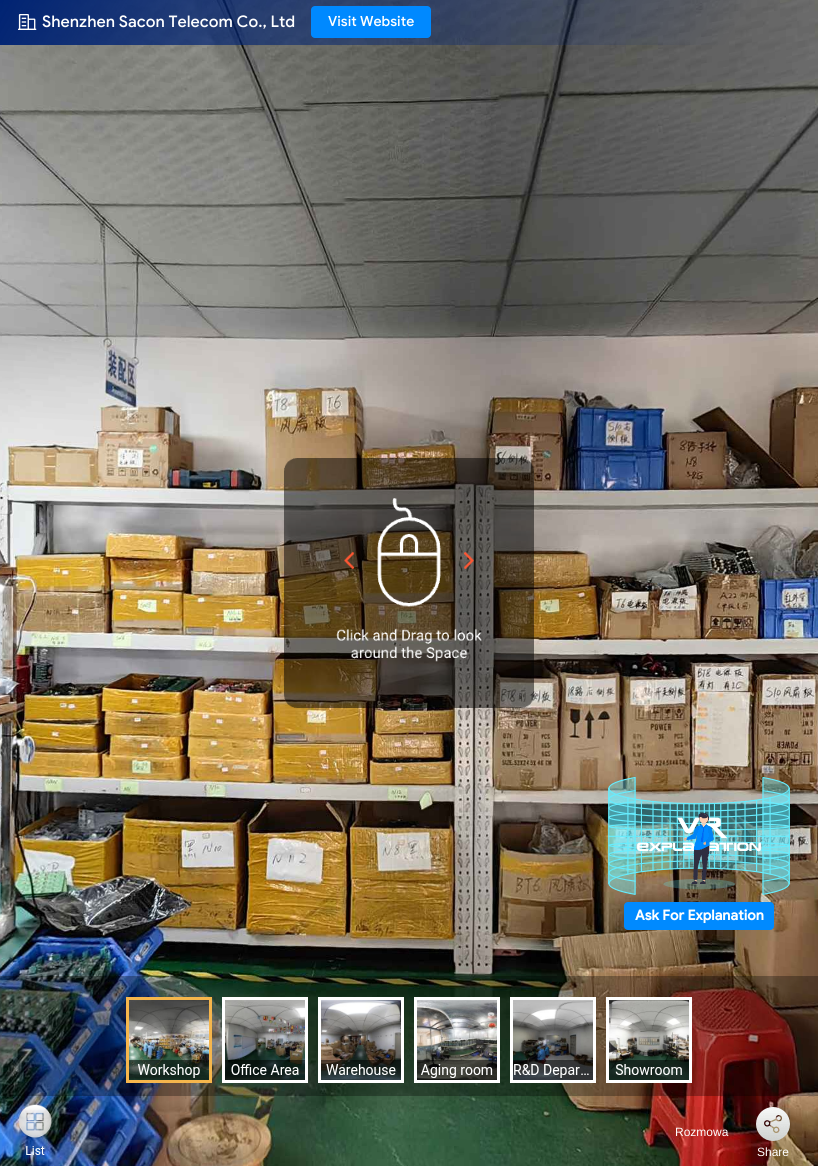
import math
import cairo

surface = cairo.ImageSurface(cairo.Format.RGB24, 818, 1166)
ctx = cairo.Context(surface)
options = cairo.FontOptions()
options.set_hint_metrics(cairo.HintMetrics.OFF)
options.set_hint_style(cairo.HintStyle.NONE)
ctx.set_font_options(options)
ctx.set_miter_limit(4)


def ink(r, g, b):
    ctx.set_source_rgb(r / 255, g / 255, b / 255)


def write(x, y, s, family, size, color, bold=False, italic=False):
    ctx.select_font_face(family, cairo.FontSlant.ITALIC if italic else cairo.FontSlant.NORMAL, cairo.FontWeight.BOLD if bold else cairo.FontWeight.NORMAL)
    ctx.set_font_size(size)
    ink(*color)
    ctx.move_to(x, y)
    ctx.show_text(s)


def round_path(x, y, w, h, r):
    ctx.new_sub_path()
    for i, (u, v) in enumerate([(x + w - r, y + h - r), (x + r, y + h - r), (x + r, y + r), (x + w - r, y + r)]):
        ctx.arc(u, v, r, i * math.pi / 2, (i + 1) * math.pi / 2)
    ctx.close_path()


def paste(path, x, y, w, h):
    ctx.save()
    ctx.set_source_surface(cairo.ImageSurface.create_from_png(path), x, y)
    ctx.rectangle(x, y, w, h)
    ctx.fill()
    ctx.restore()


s1 = dict(family="Google Sans Medium", size=16, color=(255, 255, 255))
s2 = dict(family="Google Sans Medium", size=14, color=(255, 255, 255))
s3 = dict(family="Google Sans", size=14, color=(255, 255, 255), bold=True)
s4 = dict(family="Liberation Sans", size=12, color=(255, 255, 255))

ink(255, 255, 255)
ctx.paint()
paste("pic1.png", 0, 0, 818, 1166)
paste("pic2.png", 18, 14, 19, 16)
write(42, 27, "Shenzhen Sacon Telecom Co., Ltd", **s1)
ink(0, 137, 255)
round_path(311, 6, 120, 32, 4)
ctx.fill()
write(328, 26, "Visit Website", **s2)
paste("pic3.png", 608, 776, 182, 119)
ink(0, 138, 255)
round_path(624, 902, 150, 28, 4)
ctx.fill()
write(635, 920, "Ask For Explanation", **s3)
write(675, 1136, "Rozmowa", **s4)
paste("pic4.png", 756, 1107, 34, 34)
write(757, 1156, "Share", **s4)
surface.write_to_png("screenshot.png")
